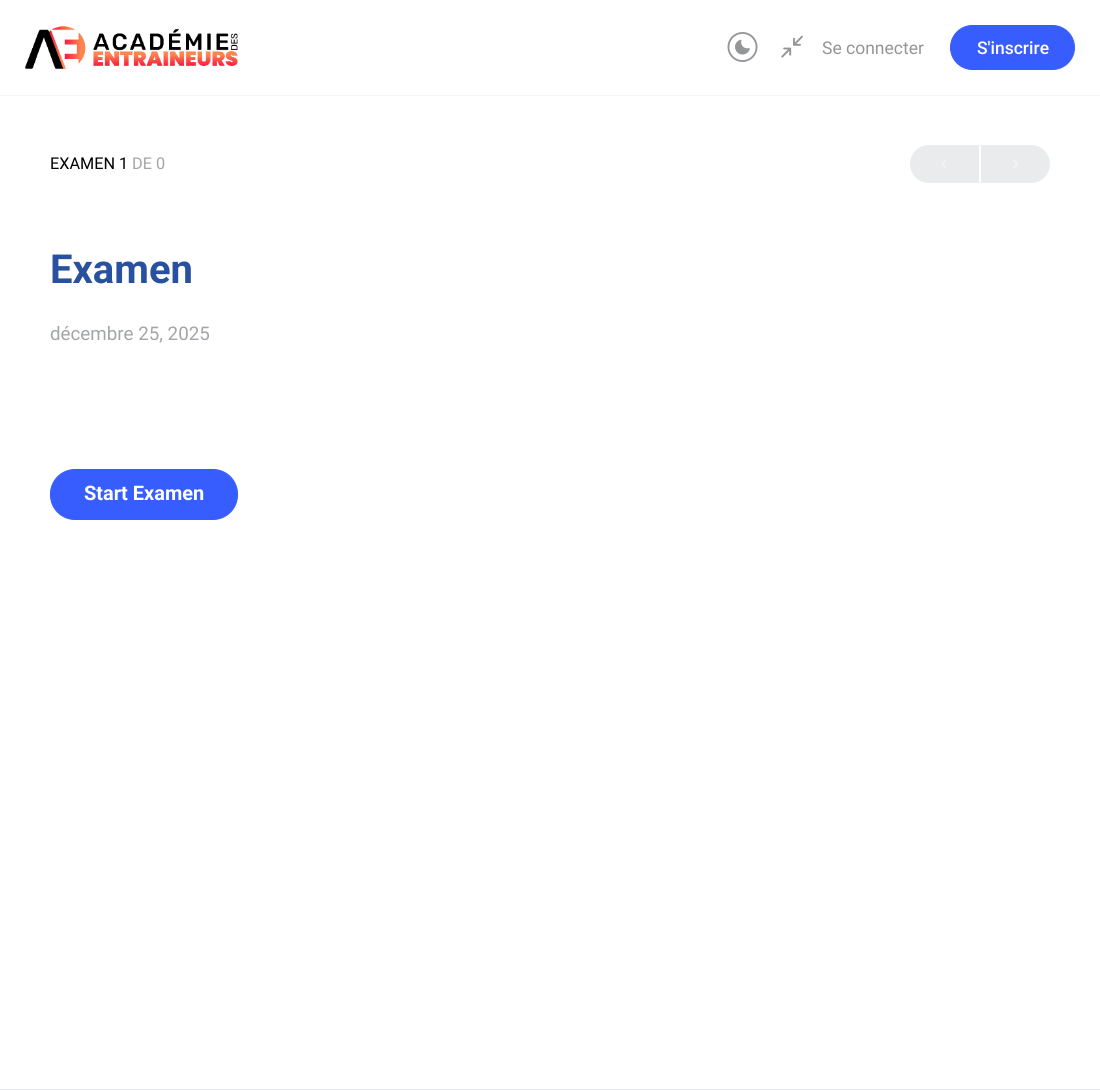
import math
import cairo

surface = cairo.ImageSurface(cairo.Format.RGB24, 1100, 1090)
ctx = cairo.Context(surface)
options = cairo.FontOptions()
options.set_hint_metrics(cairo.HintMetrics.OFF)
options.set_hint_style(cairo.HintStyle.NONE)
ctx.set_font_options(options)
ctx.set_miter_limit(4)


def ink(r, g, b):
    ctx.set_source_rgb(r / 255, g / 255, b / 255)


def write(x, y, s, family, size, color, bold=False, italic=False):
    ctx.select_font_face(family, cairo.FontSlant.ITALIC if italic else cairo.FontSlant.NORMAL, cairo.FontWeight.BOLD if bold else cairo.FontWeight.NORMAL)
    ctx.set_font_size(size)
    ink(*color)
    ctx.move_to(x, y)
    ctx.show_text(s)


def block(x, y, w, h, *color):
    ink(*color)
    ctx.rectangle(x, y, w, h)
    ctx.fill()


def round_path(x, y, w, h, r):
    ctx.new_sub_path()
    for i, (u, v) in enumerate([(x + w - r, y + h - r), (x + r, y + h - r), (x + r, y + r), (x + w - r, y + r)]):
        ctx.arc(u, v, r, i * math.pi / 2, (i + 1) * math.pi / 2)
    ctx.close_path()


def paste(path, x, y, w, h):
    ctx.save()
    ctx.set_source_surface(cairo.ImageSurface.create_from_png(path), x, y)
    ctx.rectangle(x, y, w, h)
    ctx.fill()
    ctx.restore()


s1 = dict(family="Roboto", size=17.5, color=(147, 149, 151))
s2 = dict(family="Roboto Medium", size=17.5, color=(255, 255, 255))
s3 = dict(family="Roboto", size=16.25, color=(0, 0, 0))
s4 = dict(family="Roboto", size=16.25, color=(163, 165, 169))
s5 = dict(family="Roboto", size=40, color=(40, 82, 160), bold=True)
s6 = dict(family="Roboto", size=18.75, color=(163, 165, 169))
s7 = dict(family="Roboto", size=20, color=(255, 255, 255), bold=True)

ink(255, 255, 255)
ctx.paint()
block(0, 95, 1100, 1, 246, 246, 248)
paste("pic1.png", 25, 26, 213, 44)
paste("pic2.png", 727, 32, 31, 30)
paste("pic3.png", 781, 35, 22, 23)
write(822, 54, "Se connecter", **s1)
ink(56, 93, 255)
round_path(950.5, 25.5, 124, 44, 22)
ctx.fill_preserve()
ctx.set_line_width(1)
ctx.stroke()
write(977, 54, "S'inscrire", **s2)
block(0, 1089, 1100, 1, 231, 233, 236)
write(50, 169, "EXAMEN 1", **s3)
write(132, 169, "DE 0", **s4)
ink(233, 235, 237)
ctx.new_path()
ctx.move_to(929, 145)
ctx.line_to(979, 145)
ctx.line_to(979, 183)
ctx.line_to(929, 183)
ctx.curve_to(918.5, 183, 910, 174.5, 910, 164)
ctx.curve_to(910, 153.5, 918.5, 145, 929, 145)
ctx.close_path()
ctx.fill()
paste("pic4.png", 941, 159, 6, 10)
ctx.new_path()
ctx.move_to(981, 145)
ctx.line_to(1031, 145)
ctx.curve_to(1041.5, 145, 1050, 153.5, 1050, 164)
ctx.curve_to(1050, 174.5, 1041.5, 183, 1031, 183)
ctx.line_to(981, 183)
ctx.close_path()
ctx.fill()
paste("pic5.png", 1013, 159, 5, 10)
write(50, 283, "Examen", **s5)
write(50, 340, "décembre 25, 2025", **s6)
ink(56, 93, 255)
round_path(50.5, 469.5, 187, 50, 24.5)
ctx.fill_preserve()
ctx.stroke()
write(84, 500, "Start Examen", **s7)
surface.write_to_png("screenshot.png")
